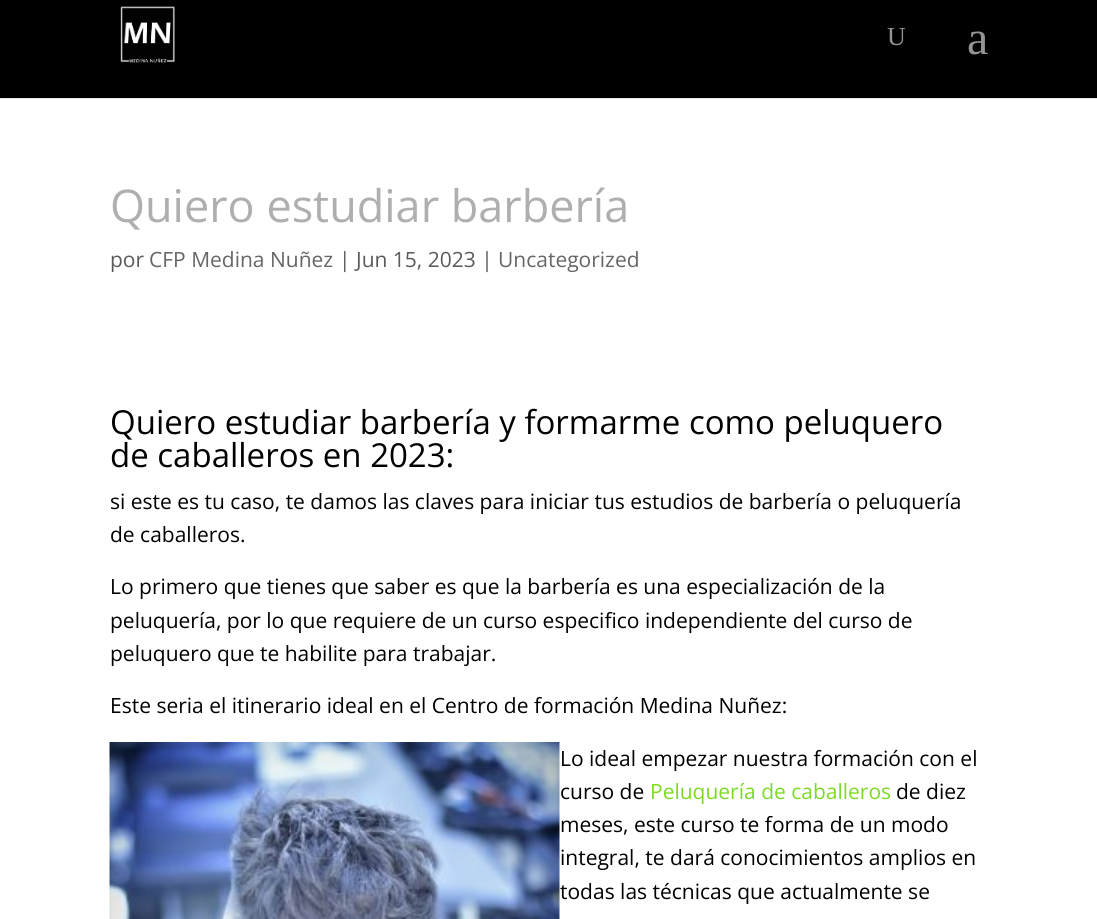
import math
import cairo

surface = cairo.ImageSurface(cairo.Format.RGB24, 1097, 919)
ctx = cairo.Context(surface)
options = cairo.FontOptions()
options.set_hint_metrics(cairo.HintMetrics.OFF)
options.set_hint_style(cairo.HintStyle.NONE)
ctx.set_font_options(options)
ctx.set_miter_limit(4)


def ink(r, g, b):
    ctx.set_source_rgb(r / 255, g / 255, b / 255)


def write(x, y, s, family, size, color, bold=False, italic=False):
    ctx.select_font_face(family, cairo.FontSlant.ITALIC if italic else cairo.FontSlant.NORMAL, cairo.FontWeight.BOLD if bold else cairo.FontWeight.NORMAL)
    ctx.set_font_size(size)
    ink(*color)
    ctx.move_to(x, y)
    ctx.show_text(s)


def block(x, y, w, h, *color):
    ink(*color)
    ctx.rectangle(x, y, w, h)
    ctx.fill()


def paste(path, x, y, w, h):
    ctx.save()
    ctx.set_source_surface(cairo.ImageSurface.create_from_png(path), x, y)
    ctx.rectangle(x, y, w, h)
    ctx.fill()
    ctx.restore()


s1 = dict(family="Liberation Serif", size=26, color=(148, 148, 148))
s2 = dict(family="Liberation Serif", size=48, color=(148, 148, 148))
s3 = dict(family="Open Sans", size=45, color=(175, 175, 175))
s4 = dict(family="Open Sans", size=21, color=(91, 91, 91))
s5 = dict(family="Open Sans", size=21, color=(102, 102, 102))
s6 = dict(family="Open Sans", size=33, color=(0, 0, 0))
s7 = dict(family="Open Sans", size=21, color=(0, 0, 0))
s8 = dict(family="Open Sans", size=21, color=(124, 218, 36))

ink(255, 255, 255)
ctx.paint()
block(0, 98, 1097, 1, 230, 230, 230)
block(0, 0, 1097, 98, 0, 0, 0)
paste("pic1.png", 120, 6, 55, 57)
write(887, 45, "U", **s1)
write(967, 54, "a", **s2)
write(110, 222, "Quiero estudiar barbería", **s3)
write(110, 267, "por", **s4)
write(149, 267, "CFP Medina Nuñez", **s5)
write(339, 267, "| Jun 15, 2023 |", **s4)
write(498, 267, "Uncategorized", **s5)
write(110, 434, "Quiero estudiar barbería y formarme como peluquero", **s6)
write(110, 467, "de caballeros en 2023:", **s6)
write(110, 509, "si este es tu caso, te damos las claves para iniciar tus estudios de barbería o peluquería", **s7)
write(110, 542, "de caballeros.", **s7)
write(110, 594, "Lo primero que tienes que saber es que la barbería es una especialización de la", **s7)
write(110, 628, "peluquería, por lo que requiere de un curso especifico independiente del curso de", **s7)
write(110, 661, "peluquero que te habilite para trabajar.", **s7)
write(110, 713, "Este seria el itinerario ideal en el Centro de formación Medina Nuñez:", **s7)
paste("pic2.png", 109, 742, 451, 177)
write(560, 766, "Lo ideal empezar nuestra formación con el", **s7)
write(560, 799, "curso de", **s7)
write(650, 799, "Peluquería de caballeros", **s8)
write(896, 799, "de diez", **s7)
write(560, 832, "meses, este curso te forma de un modo", **s7)
write(560, 865, "integral, te dará conocimientos amplios en", **s7)
write(560, 899, "todas las técnicas que actualmente se", **s7)
surface.write_to_png("screenshot.png")
